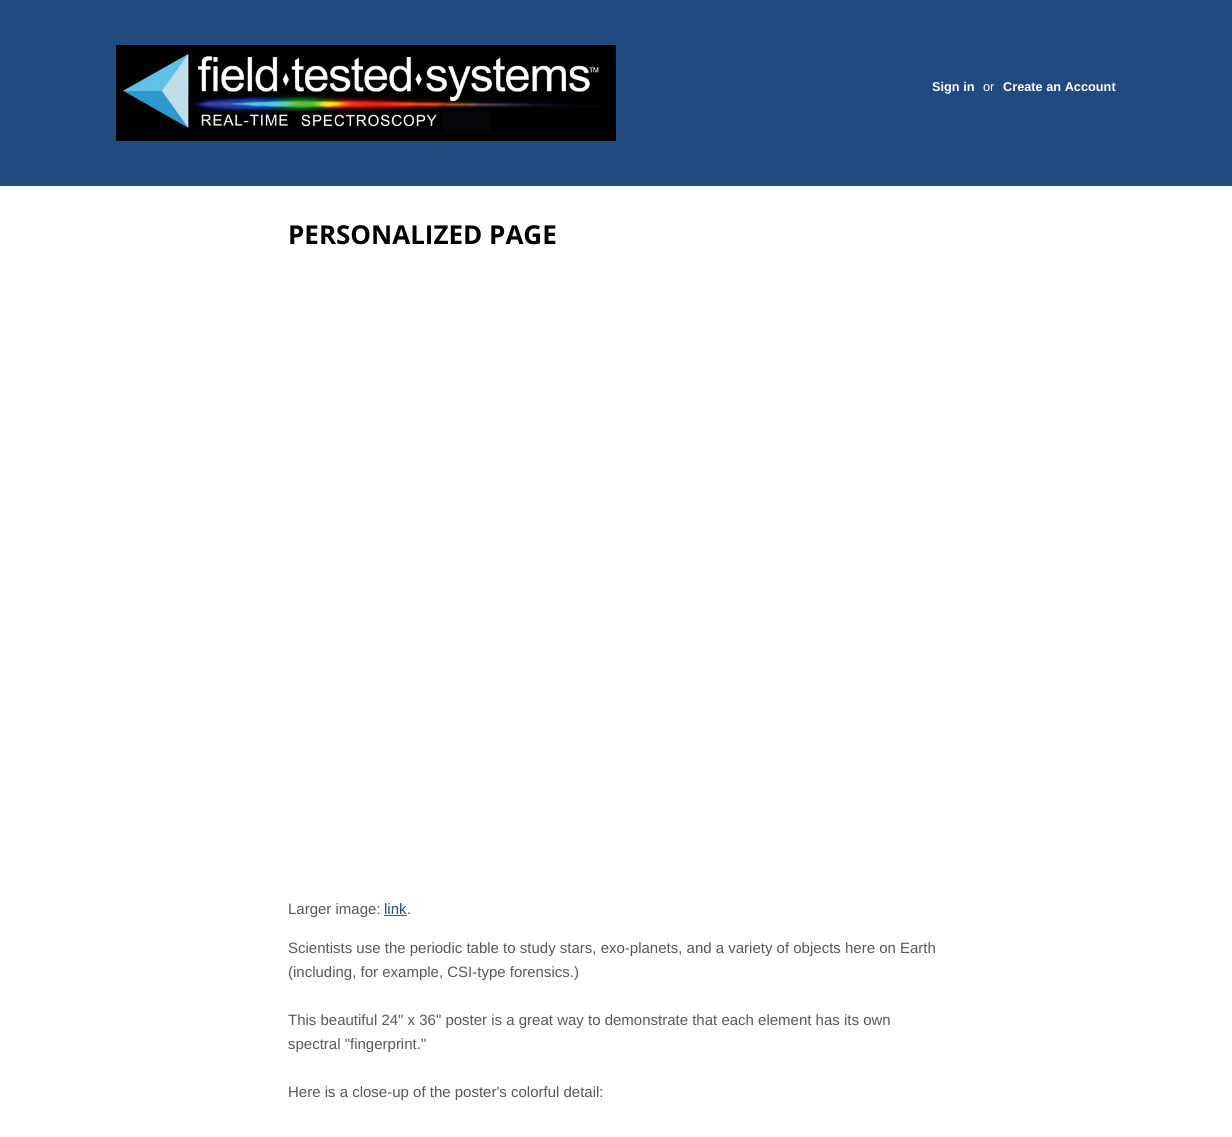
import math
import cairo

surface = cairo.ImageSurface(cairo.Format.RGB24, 1232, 1137)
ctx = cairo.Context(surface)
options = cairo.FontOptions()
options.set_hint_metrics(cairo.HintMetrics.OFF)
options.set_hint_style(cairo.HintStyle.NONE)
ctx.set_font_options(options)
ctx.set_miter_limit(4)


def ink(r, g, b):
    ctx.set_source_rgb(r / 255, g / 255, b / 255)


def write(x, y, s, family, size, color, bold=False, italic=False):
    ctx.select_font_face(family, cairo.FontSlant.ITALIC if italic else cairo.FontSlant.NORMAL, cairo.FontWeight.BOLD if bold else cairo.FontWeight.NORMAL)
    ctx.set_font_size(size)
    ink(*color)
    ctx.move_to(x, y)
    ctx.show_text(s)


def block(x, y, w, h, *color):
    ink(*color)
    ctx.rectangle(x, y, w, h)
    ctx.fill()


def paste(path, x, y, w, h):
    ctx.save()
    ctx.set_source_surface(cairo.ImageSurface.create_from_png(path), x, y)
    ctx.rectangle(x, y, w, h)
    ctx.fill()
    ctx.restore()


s1 = dict(family="Liberation Sans", size=12.75, color=(255, 255, 255), bold=True)
s2 = dict(family="Liberation Sans", size=12.75, color=(255, 255, 255))
s3 = dict(family="Open Sans", size=26, color=(0, 0, 0), bold=True)
s4 = dict(family="Liberation Sans", size=15, color=(88, 88, 88))
s5 = dict(family="Liberation Sans", size=15, color=(32, 74, 128))

ink(255, 255, 255)
ctx.paint()
block(0, 0, 1232, 186, 32, 74, 128)
paste("pic1.png", 116, 45, 500, 96)
write(932, 91, "Sign in", **s1)
write(983, 91, "or", **s2)
write(1003, 91, "Create an Account", **s1)
write(288, 244, "PERSONALIZED PAGE", **s3)
write(288, 914, "Larger image:", **s4)
write(384, 914, "link", **s5)
block(384, 915, 23, 1, 88, 88, 88)
write(407, 914, ".", **s4)
write(288, 953, "Scientists use the periodic table to study stars, exo-planets, and a variety of objects here on Earth", **s4)
write(288, 977, "(including, for example, CSI-type forensics.)", **s4)
write(288, 1025, "This beautiful 24\" x 36\" poster is a great way to demonstrate that each element has its own", **s4)
write(288, 1049, "spectral \"fingerprint.\"", **s4)
write(288, 1097, "Here is a close-up of the poster's colorful detail:", **s4)
surface.write_to_png("screenshot.png")
